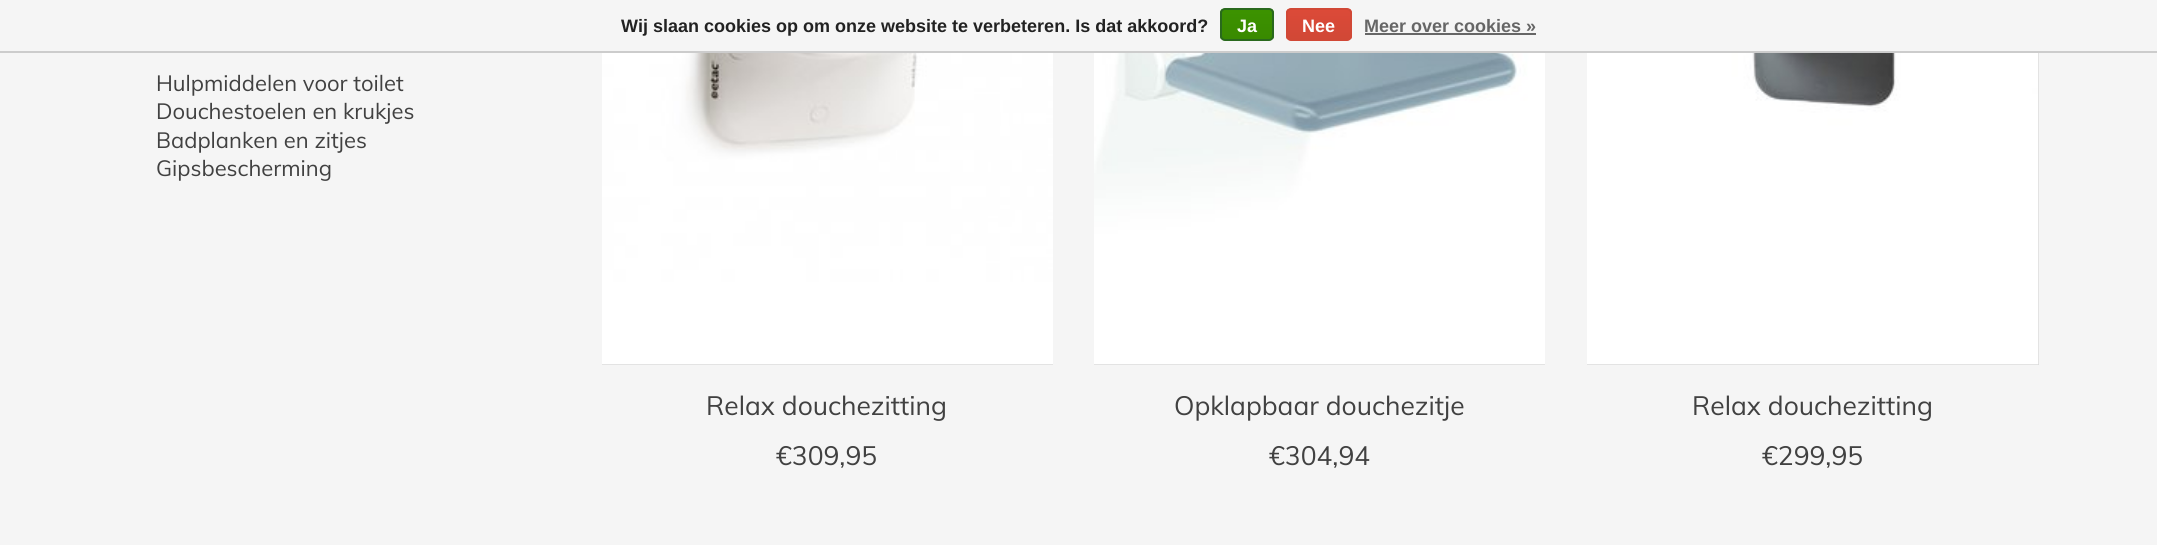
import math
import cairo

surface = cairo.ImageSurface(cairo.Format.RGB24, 2157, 545)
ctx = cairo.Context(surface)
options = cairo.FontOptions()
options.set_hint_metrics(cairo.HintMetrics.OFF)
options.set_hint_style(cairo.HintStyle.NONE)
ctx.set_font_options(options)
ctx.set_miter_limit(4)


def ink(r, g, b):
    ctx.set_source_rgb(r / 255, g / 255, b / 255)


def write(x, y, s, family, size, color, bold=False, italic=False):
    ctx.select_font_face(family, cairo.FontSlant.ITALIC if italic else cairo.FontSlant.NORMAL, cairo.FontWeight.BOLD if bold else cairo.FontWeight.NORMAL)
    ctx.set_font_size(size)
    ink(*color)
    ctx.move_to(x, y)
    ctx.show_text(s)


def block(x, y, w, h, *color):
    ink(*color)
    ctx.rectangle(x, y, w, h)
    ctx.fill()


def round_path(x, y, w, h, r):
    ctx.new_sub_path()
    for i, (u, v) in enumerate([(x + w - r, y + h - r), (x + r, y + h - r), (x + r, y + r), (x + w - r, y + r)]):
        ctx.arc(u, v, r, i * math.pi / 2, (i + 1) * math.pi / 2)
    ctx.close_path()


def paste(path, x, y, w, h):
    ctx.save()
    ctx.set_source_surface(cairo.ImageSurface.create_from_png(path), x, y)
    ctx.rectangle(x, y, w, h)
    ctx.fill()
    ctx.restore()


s1 = dict(family="Liberation Sans", size=18, color=(34, 34, 34), bold=True)
s2 = dict(family="Liberation Sans", size=18, color=(255, 255, 255), bold=True)
s3 = dict(family="Liberation Sans", size=18, color=(102, 102, 102), bold=True)
s4 = dict(family="Muli", size=22, color=(65, 65, 65))
s5 = dict(family="Muli", size=26.4, color=(65, 65, 65))

ink(245, 245, 245)
ctx.paint()
block(0, 51, 2157, 2, 204, 204, 204)
write(621, 32, "Wij slaan cookies op om onze website te verbeteren. Is dat akkoord?", **s1)
ctx.save()
round_path(1220, 8, 54, 33, 5)
ctx.clip()
gradient = cairo.LinearGradient(1247, 9, 1247, 39)
gradient.add_color_stop_rgba(0, 0.235, 0.576, 0, 1)
gradient.add_color_stop_rgba(1, 0.224, 0.541, 0, 1)
ctx.set_source(gradient)
ctx.rectangle(1220, 9, 54, 30)
ctx.fill()
ctx.restore()
round_path(1221, 9, 52, 31, 4)
ink(41, 105, 29)
ctx.stroke()
write(1237, 32, "Ja", **s2)
ctx.save()
round_path(1286, 8, 66, 33, 5)
ctx.clip()
gradient = cairo.LinearGradient(1319, 9, 1319, 39)
gradient.add_color_stop_rgba(0, 0.863, 0.29, 0.22, 1)
gradient.add_color_stop_rgba(1, 0.82, 0.282, 0.212, 1)
ctx.set_source(gradient)
ctx.rectangle(1286, 9, 66, 30)
ctx.fill()
ctx.restore()
round_path(1287, 9, 64, 31, 4)
ink(209, 72, 54)
ctx.stroke()
write(1302, 32, "Nee", **s2)
write(1364, 32, "Meer over cookies »", **s3)
block(1365, 33, 171, 2, 102, 102, 102)
write(156, 91, "Hulpmiddelen voor toilet", **s4)
write(156, 119, "Douchestoelen en krukjes", **s4)
write(156, 148, "Badplanken en zitjes", **s4)
write(156, 176, "Gipsbescherming", **s4)
block(602, 364, 451, 1, 218, 218, 218)
paste("pic1.png", 602, 53, 451, 312)
write(706, 415, "Relax douchezitting", **s5)
write(776, 465, "€309,95", **s5)
block(1094, 364, 451, 1, 218, 218, 218)
paste("pic2.png", 1094, 53, 451, 312)
write(1174, 415, "Opklapbaar douchezitje", **s5)
write(1269, 465, "€304,94", **s5)
block(1587, 53, 452, 312, 218, 218, 218)
paste("pic3.png", 1587, 53, 452, 312)
write(1692, 415, "Relax douchezitting", **s5)
write(1762, 465, "€299,95", **s5)
surface.write_to_png("screenshot.png")
